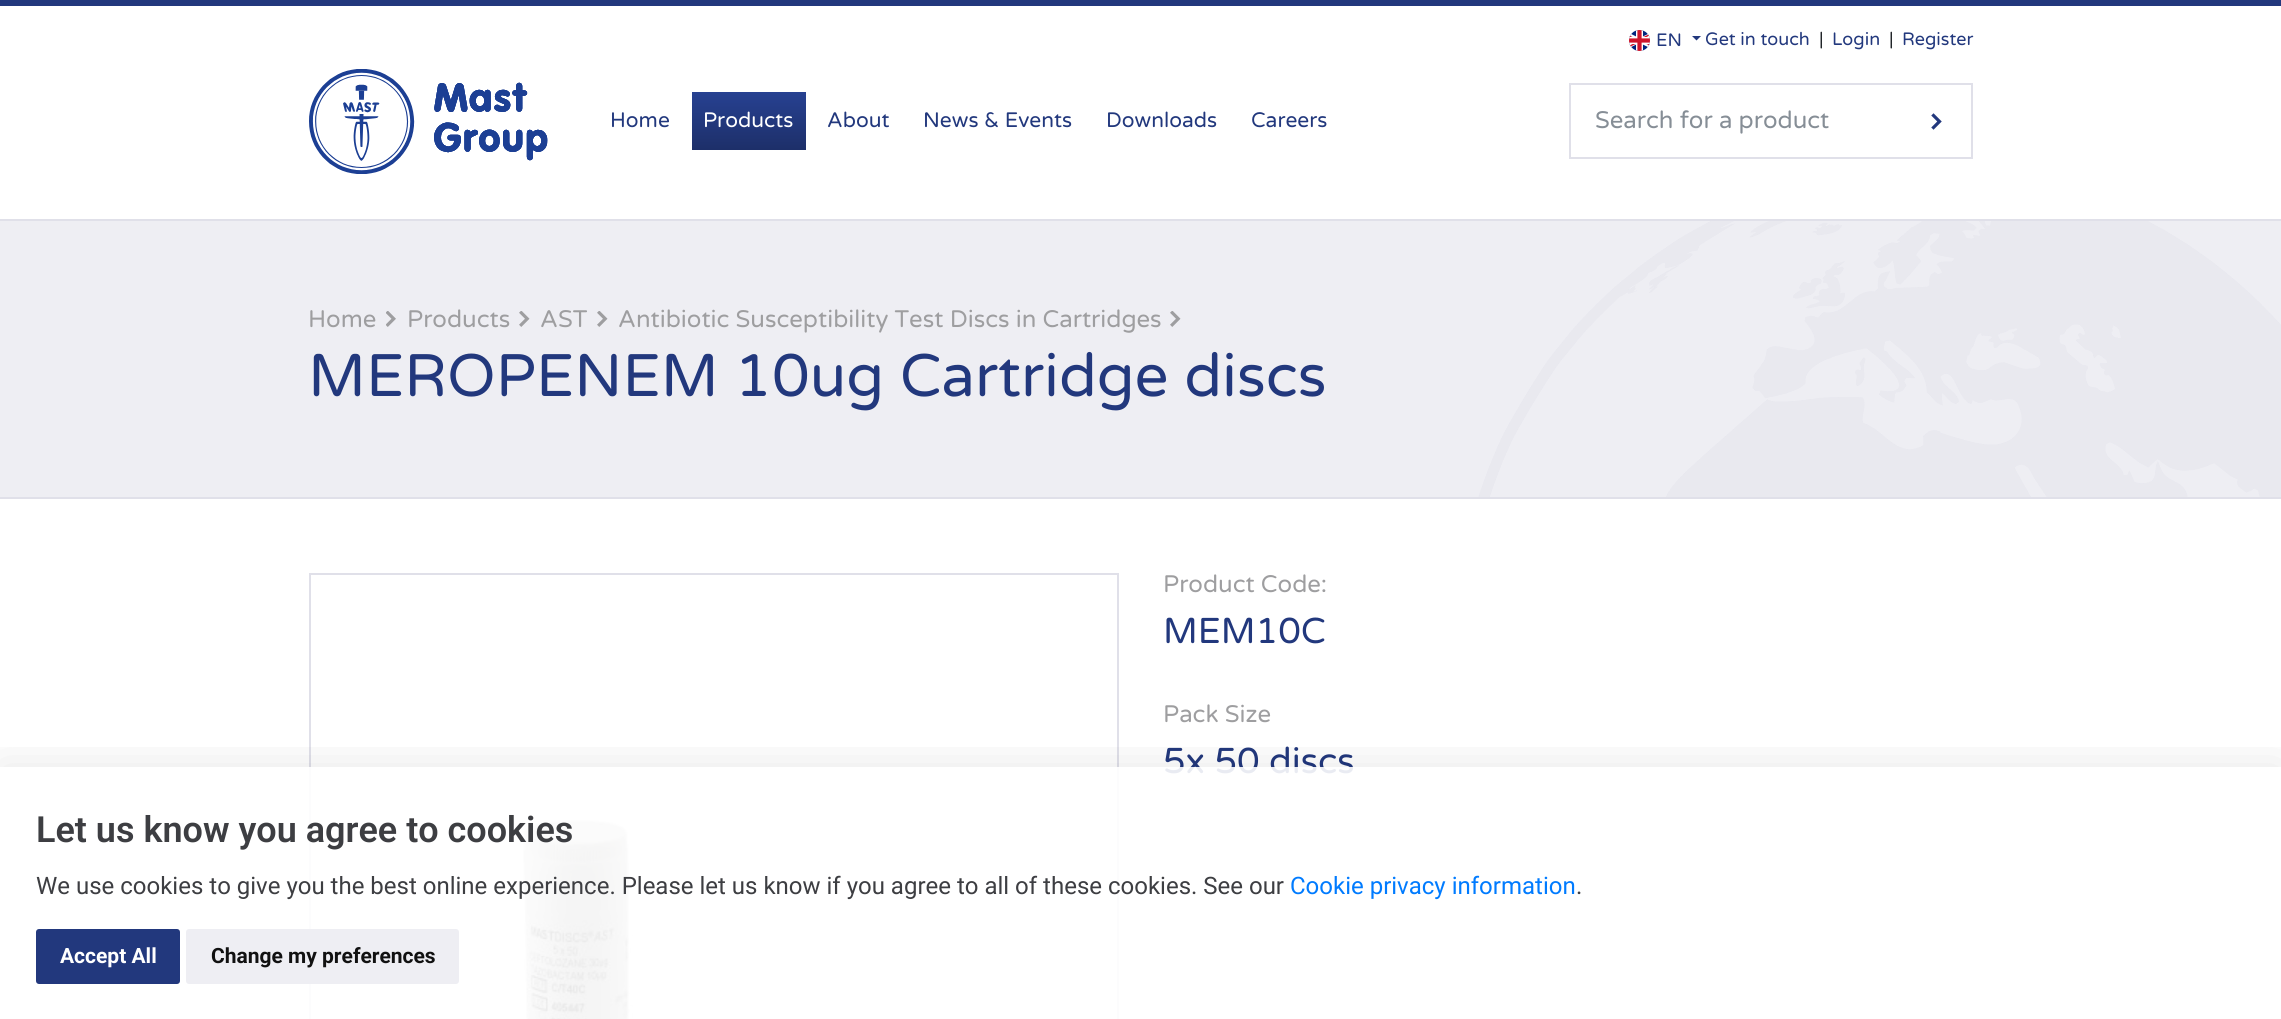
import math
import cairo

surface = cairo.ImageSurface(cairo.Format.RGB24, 2281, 1019)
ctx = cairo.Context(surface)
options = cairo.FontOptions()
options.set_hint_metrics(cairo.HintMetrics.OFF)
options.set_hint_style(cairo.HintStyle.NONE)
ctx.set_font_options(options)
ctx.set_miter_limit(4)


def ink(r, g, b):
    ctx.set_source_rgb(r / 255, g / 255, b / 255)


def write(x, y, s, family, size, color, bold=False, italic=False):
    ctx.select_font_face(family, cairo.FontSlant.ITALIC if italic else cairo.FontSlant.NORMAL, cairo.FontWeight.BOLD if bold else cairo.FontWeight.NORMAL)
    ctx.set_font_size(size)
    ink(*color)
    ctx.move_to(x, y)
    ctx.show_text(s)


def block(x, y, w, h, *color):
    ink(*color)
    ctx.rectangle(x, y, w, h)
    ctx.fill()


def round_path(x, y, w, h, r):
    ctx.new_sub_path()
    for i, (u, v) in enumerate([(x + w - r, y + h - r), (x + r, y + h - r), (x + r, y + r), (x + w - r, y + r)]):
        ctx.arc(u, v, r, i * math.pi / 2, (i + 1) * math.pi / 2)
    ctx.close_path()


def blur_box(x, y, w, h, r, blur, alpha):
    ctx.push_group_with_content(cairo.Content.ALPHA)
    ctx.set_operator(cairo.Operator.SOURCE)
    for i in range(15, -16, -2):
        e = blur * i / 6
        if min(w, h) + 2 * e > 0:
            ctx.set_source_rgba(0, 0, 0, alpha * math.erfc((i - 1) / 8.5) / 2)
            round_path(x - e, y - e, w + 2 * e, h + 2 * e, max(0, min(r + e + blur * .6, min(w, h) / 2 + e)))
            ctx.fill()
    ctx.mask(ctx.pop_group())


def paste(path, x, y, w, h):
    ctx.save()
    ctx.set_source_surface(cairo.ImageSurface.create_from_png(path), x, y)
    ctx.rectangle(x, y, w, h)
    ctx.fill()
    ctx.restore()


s1 = dict(family="Varela Round", size=18, color=(34, 56, 125))
s2 = dict(family="Varela Round", size=18, color=(33, 37, 41))
s3 = dict(family="Varela Round", size=21, color=(34, 56, 125))
s4 = dict(family="Varela Round", size=21, color=(255, 255, 255))
s5 = dict(family="Varela Round", size=24, color=(134, 142, 150))
s6 = dict(family="Varela Round", size=24, color=(158, 158, 160))
s7 = dict(family="Varela Round", size=60, color=(34, 56, 125))
s8 = dict(family="Varela Round", size=36, color=(34, 56, 125))
s9 = dict(family="Roboto SemiBold", size=36, color=(61, 62, 66))
s10 = dict(family="Roboto", size=24, color=(61, 62, 66))
s11 = dict(family="Roboto", size=24, color=(0, 123, 255))
s12 = dict(family="Roboto", size=21, color=(255, 255, 255), bold=True)
s13 = dict(family="Roboto", size=21, color=(17, 17, 17), bold=True)

ink(255, 255, 255)
ctx.paint()
block(0, 0, 2281, 6, 34, 56, 125)
paste("pic1.png", 1629, 30, 21, 21)
write(1656, 46, "EN", **s1)
ctx.new_path()
ctx.move_to(1692, 36)
ctx.line_to(1701, 36)
ctx.line_to(1696.5, 40.5)
ctx.close_path()
ctx.fill()
write(1705, 45, "Get in touch", **s1)
write(1819, 45, "|", **s2)
write(1832, 45, "Login", **s1)
write(1889, 45, "|", **s2)
write(1902, 45, "Register", **s1)
paste("pic2.png", 309, 69, 239, 105)
write(610, 127, "Home", **s3)
gradient = cairo.LinearGradient(749, 92, 749, 150)
gradient.add_color_stop_rgba(0, 0.153, 0.255, 0.569, 1)
gradient.add_color_stop_rgba(1, 0.114, 0.184, 0.412, 1)
ctx.set_source(gradient)
ctx.rectangle(692, 92, 114, 58)
ctx.fill()
write(703, 127, "Products", **s4)
write(827, 127, "About", **s3)
write(923, 127, "News & Events", **s3)
write(1106, 127, "Downloads", **s3)
write(1251, 127, "Careers", **s3)
ctx.rectangle(1570, 84, 402, 74)
ink(224, 224, 233)
ctx.stroke()
write(1595, 128, "Search for a product", **s5)
paste("pic3.png", 1931, 113, 11, 17)
block(0, 221, 2281, 276, 238, 238, 243)
paste("pic4.png", 1478, 221, 803, 276)
block(0, 219, 2281, 2, 224, 224, 233)
block(0, 497, 2281, 2, 224, 224, 233)
write(308, 327, "Home", **s6)
paste("pic5.png", 386, 311, 10, 16)
write(407, 327, "Products", **s6)
paste("pic6.png", 519, 311, 11, 16)
write(540, 327, "AST", **s6)
paste("pic6.png", 597, 311, 11, 16)
write(618, 327, "Antibiotic Susceptibility Test Discs in Cartridges", **s6)
paste("pic6.png", 1170, 311, 11, 16)
write(308, 396, "MEROPENEM 10ug Cartridge discs", **s7)
ctx.rectangle(310, 574, 808, 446)
ink(224, 224, 233)
ctx.stroke()
paste("pic7.png", 518, 819, 115, 200)
write(1163, 592, "Product Code:", **s6)
write(1163, 643, "MEM10C", **s8)
write(1163, 722, "Pack Size", **s6)
write(1163, 773, "5x 50 discs", **s8)
ctx.save()
ctx.rectangle(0, 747, 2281, 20)
ctx.clip()
ink(0, 0, 0)
blur_box(0, 767, 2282, 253, 0, 24, 0.1)
ctx.restore()
ctx.set_source_rgba(1, 1, 1, 0.9)
ctx.rectangle(309, 767, 1045, 252)
ctx.fill()
write(36, 842, "Let us know you agree to cookies", **s9)
write(36, 894, "We use cookies to give you the best online experience. Please let us know if you agree to all of these cookies. See our", **s10)
write(1290, 894, "Cookie privacy information", **s11)
write(1576, 894, ".", **s10)
ink(34, 56, 125)
round_path(36, 929, 144, 55, 3)
ctx.fill()
write(60, 963, "Accept All", **s12)
ink(238, 238, 243)
round_path(186, 929, 273, 55, 3)
ctx.fill()
write(211, 963, "Change my preferences", **s13)
surface.write_to_png("screenshot.png")
